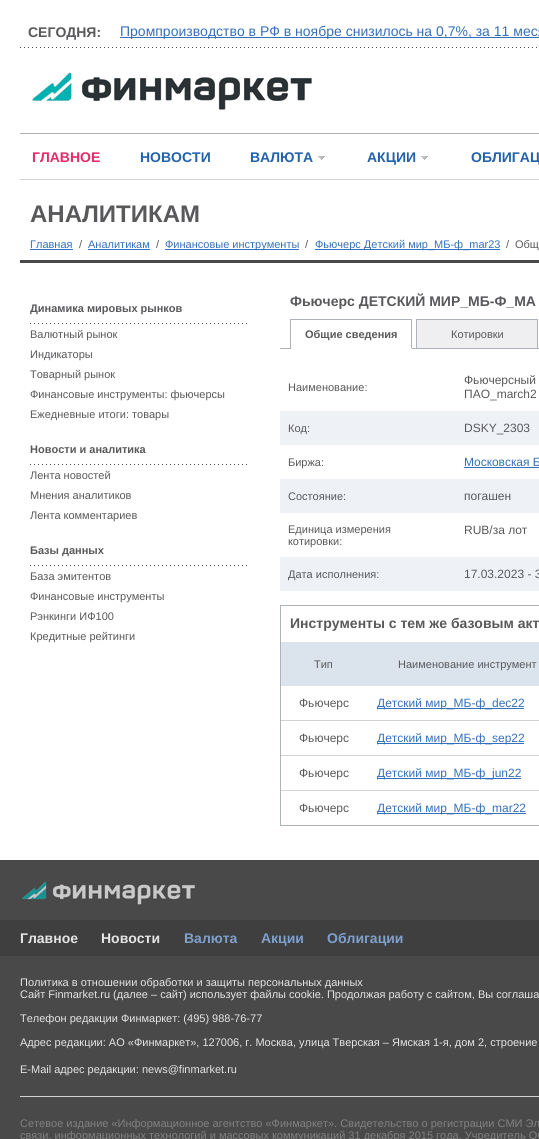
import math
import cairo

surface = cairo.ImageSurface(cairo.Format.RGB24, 539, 1139)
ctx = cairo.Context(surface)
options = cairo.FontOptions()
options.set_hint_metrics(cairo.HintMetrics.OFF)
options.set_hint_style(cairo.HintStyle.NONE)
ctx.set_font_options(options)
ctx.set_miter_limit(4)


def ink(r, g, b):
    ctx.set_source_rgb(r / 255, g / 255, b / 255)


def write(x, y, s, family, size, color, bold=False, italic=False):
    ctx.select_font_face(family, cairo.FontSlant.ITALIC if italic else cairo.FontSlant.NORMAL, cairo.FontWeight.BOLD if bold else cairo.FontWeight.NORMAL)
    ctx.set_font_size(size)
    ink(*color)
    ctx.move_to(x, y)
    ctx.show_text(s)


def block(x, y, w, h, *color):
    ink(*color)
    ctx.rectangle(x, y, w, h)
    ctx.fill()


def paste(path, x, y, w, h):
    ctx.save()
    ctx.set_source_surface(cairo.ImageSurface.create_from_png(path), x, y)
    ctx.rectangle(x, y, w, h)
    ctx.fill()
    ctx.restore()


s1 = dict(family="Liberation Sans", size=14, color=(89, 89, 92), bold=True)
s2 = dict(family="Liberation Sans", size=14, color=(53, 112, 188))
s3 = dict(family="Liberation Sans", size=14, color=(230, 43, 102), bold=True)
s4 = dict(family="Liberation Sans", size=14, color=(34, 98, 172), bold=True)
s5 = dict(family="Liberation Sans", size=24, color=(89, 89, 92), bold=True)
s6 = dict(family="Liberation Sans", size=11, color=(53, 112, 188))
s7 = dict(family="Liberation Sans", size=11, color=(89, 89, 92))
s8 = dict(family="Liberation Sans", size=11, color=(89, 89, 92), bold=True)
s9 = dict(family="Liberation Sans", size=12, color=(89, 89, 92))
s10 = dict(family="Liberation Sans", size=12, color=(53, 112, 188))
s11 = dict(family="Liberation Sans", size=14, color=(229, 229, 229), bold=True)
s12 = dict(family="Liberation Sans", size=14, color=(126, 160, 204), bold=True)
s13 = dict(family="Liberation Sans", size=11, color=(229, 229, 229))
s14 = dict(family="Liberation Sans", size=11, color=(129, 129, 129))

ink(73, 73, 73)
ctx.paint()
block(0, 0, 539, 860, 255, 255, 255)
write(28, 37, "СЕГОДНЯ:", **s1)
block(120, 37, 419, 1, 53, 112, 188)
write(120, 36, "Промпроизводство в РФ в ноябре снизилось на 0,7%, за 11 меся", **s2)
paste("pic1.png", 20, 47, 517, 1)
paste("pic2.png", 32, 72, 280, 38)
block(20, 133, 519, 1, 173, 178, 187)
write(32, 162, "ГЛАВНОЕ", **s3)
write(140, 162, "НОВОСТИ", **s4)
write(250, 162, "ВАЛЮТА", **s4)
paste("pic3.png", 318, 156, 7, 4)
write(367, 162, "АКЦИИ", **s4)
paste("pic3.png", 421, 156, 7, 4)
write(471, 162, "ОБЛИГАЦ", **s4)
block(20, 179, 519, 1, 210, 210, 210)
write(30, 222, "АНАЛИТИКАМ", **s5)
write(30, 248, "Главная", **s6)
block(30, 249, 43, 1, 53, 112, 188)
write(79, 248, "/", **s7)
write(88, 248, "Аналитикам", **s6)
block(88, 249, 62, 1, 53, 112, 188)
write(156, 248, "/", **s7)
block(165, 249, 134, 1, 53, 112, 188)
write(165, 248, "Финансовые инструменты", **s6)
write(305, 248, "/", **s7)
block(315, 249, 185, 1, 53, 112, 188)
write(315, 248, "Фьючерс Детский мир_МБ-ф_mar23", **s6)
write(506, 248, "/", **s7)
write(515, 248, "Общ", **s7)
block(20, 260, 519, 3, 73, 73, 73)
write(30, 312, "Динамика мировых рынков", **s8)
paste("pic4.png", 30, 323, 217, 1)
write(30, 338, "Валютный рынок", **s7)
write(30, 358, "Индикаторы", **s7)
write(30, 378, "Товарный рынок", **s7)
write(30, 398, "Финансовые инструменты: фьючерсы", **s7)
write(30, 418, "Ежедневные итоги: товары", **s7)
write(30, 453, "Новости и аналитика", **s8)
paste("pic4.png", 30, 464, 217, 1)
write(30, 479, "Лента новостей", **s7)
write(30, 499, "Мнения аналитиков", **s7)
write(30, 519, "Лента комментариев", **s7)
write(30, 554, "Базы данных", **s8)
paste("pic4.png", 30, 565, 217, 1)
write(30, 580, "База эмитентов", **s7)
write(30, 600, "Финансовые инструменты", **s7)
write(30, 620, "Рэнкинги ИФ100", **s7)
write(30, 640, "Кредитные рейтинги", **s7)
write(290, 306, "Фьючерс ДЕТСКИЙ МИР_МБ-Ф_MA", **s1)
block(290, 319, 122, 1, 173, 178, 187)
block(280, 348, 259, 1, 173, 178, 187)
block(411, 319, 1, 30, 173, 178, 187)
block(290, 348, 122, 1, 255, 255, 255)
block(290, 319, 1, 30, 173, 178, 187)
write(305, 338, "Общие сведения", **s8)
ink(239, 239, 241)
ctx.rectangle(416.5, 319.5, 121, 29)
ctx.fill_preserve()
ink(173, 178, 187)
ctx.set_line_width(1)
ctx.stroke()
write(451, 338, "Котировки", **s7)
write(288, 391, "Наименование:", **s7)
write(464, 384, "Фьючерсный", **s9)
write(464, 398, "ПАО_march2", **s9)
block(280, 411, 259, 34, 238, 241, 246)
write(288, 432, "Код:", **s7)
write(464, 432, "DSKY_2303", **s9)
write(288, 466, "Биржа:", **s7)
write(464, 466, "Московская Б", **s10)
block(464, 467, 75, 1, 53, 112, 188)
block(280, 479, 259, 34, 238, 241, 246)
write(288, 500, "Состояние:", **s7)
write(464, 500, "погашен", **s9)
write(288, 533, "Единица измерения", **s7)
write(288, 545, "котировки:", **s7)
write(464, 534, "RUB/за лот", **s9)
block(280, 557, 259, 34, 238, 241, 246)
write(288, 578, "Дата исполнения:", **s7)
write(464, 578, "17.03.2023 - 3", **s9)
ctx.rectangle(280.5, 605.5, 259, 220)
ink(173, 178, 187)
ctx.stroke()
write(290, 628, "Инструменты с тем же базовым акт", **s1)
block(281, 642, 258, 44, 219, 228, 237)
write(314, 668, "Тип", **s7)
write(398, 668, "Наименование инструмент", **s7)
block(281, 720, 258, 1, 210, 210, 210)
write(299, 707, "Фьючерс", **s9)
block(377, 708, 147, 1, 53, 112, 188)
write(377, 707, "Детский мир_МБ-ф_dec22", **s10)
block(281, 755, 258, 1, 210, 210, 210)
write(299, 742, "Фьючерс", **s9)
block(377, 743, 147, 1, 53, 112, 188)
write(377, 742, "Детский мир_МБ-ф_sep22", **s10)
block(281, 790, 258, 1, 210, 210, 210)
write(299, 777, "Фьючерс", **s9)
block(377, 778, 144, 1, 53, 112, 188)
write(377, 777, "Детский мир_МБ-ф_jun22", **s10)
write(299, 812, "Фьючерс", **s9)
block(377, 813, 149, 1, 53, 112, 188)
write(377, 812, "Детский мир_МБ-ф_mar22", **s10)
paste("pic5.png", 22, 881, 173, 24)
block(0, 920, 539, 36, 63, 63, 63)
write(20, 943, "Главное", **s11)
write(101, 943, "Новости", **s11)
write(184, 943, "Валюта", **s12)
write(261, 943, "Акции", **s12)
write(327, 943, "Облигации", **s12)
write(20, 986, "Политика в отношении обработки и защиты персональных данных", **s13)
write(20, 998, "Сайт Finmarket.ru (далее – сайт) использует файлы cookie. Продолжая работу с сайтом, Вы соглаша", **s13)
write(20, 1022, "Телефон редакции Финмаркет: (495) 988-76-77", **s13)
write(20, 1046, "Адрес редакции: АО «Финмаркет», 127006, г. Москва, улица Тверская – Ямская 1-я, дом 2, строение", **s13)
write(20, 1073, "E-Mail адрес редакции:", **s13)
write(142, 1073, "news@finmarket.ru", **s13)
block(20, 1096, 519, 1, 210, 210, 210)
write(20, 1127, "Сетевое издание «Информационное агентство «Финмаркет». Свидетельство о регистрации СМИ Эл", **s14)
write(20, 1139, "связи, информационных технологий и массовых коммуникаций 31 декабря 2015 года. Учредитель ОО", **s14)
surface.write_to_png("screenshot.png")
